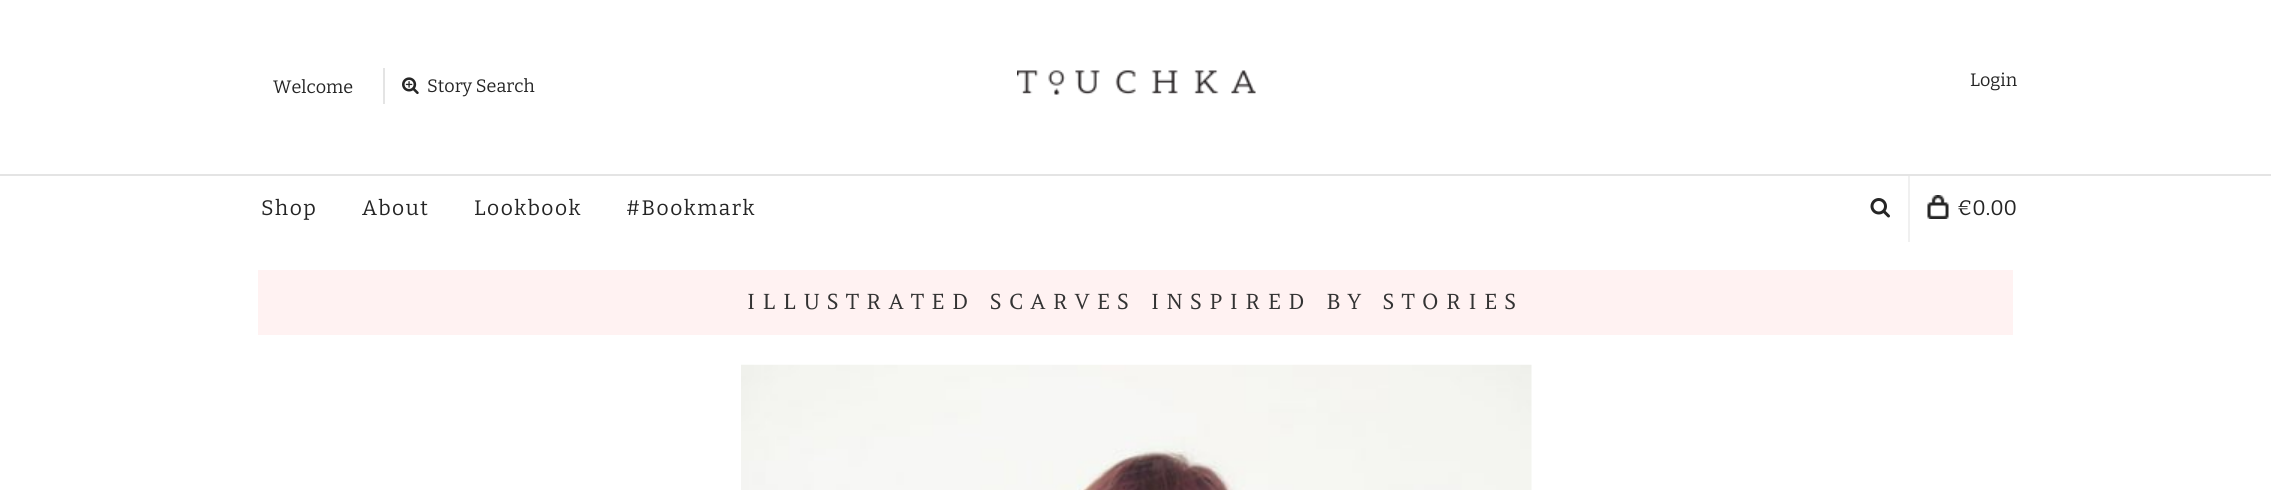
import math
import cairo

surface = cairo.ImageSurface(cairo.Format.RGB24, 2271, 490)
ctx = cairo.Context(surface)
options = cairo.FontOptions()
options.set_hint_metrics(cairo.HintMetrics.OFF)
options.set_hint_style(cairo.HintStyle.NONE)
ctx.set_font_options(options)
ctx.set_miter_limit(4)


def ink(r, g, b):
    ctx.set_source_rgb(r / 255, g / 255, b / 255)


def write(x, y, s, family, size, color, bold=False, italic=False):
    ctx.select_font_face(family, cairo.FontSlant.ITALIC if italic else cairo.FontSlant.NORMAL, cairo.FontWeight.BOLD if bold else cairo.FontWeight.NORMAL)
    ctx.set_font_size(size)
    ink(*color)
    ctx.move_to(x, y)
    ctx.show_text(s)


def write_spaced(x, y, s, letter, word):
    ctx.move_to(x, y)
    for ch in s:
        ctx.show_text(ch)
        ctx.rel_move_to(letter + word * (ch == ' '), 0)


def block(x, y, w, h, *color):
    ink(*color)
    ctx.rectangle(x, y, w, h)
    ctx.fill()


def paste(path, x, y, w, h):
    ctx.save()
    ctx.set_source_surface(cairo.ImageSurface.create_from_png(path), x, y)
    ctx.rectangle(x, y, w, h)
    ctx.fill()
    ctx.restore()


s1 = dict(family="Bitter Thin", size=18, color=(37, 37, 37))
s2 = dict(family="Bitter Thin", size=21, color=(37, 37, 37))

ink(255, 255, 255)
ctx.paint()
write(273, 93, "Welcome", **s1)
block(383, 68, 2, 36, 228, 228, 228)
paste("pic1.png", 402, 77, 17, 18)
write(427, 92, "Story Search", **s1)
paste("pic2.png", 1017, 70, 239, 25)
write(1970, 86, "Login", **s1)
block(0, 174, 2271, 2, 228, 228, 228)
ctx.set_font_size(21)
ink(37, 37, 37)
write_spaced(261, 215, "Shop", 1.5, 0)
write_spaced(362, 215, "About", 1.5, 0)
write_spaced(474, 215, "Lookbook", 1.5, 0)
write_spaced(626, 215, "#Bookmark", 1.5, 0)
paste("pic3.png", 1870, 198, 20, 20)
block(1908, 176, 2, 66, 240, 240, 240)
paste("pic4.png", 1927, 195, 22, 24)
write(1957, 215, "€0.00", **s2)
block(258, 270, 1755, 65, 255, 242, 242)
ctx.select_font_face("Amethysta")
ink(51, 51, 51)
write_spaced(747, 309, "ILLUSTRATED SCARVES INSPIRED BY STORIES", 7.5, 0)
paste("pic5.png", 741, 364, 791, 126)
surface.write_to_png("screenshot.png")
